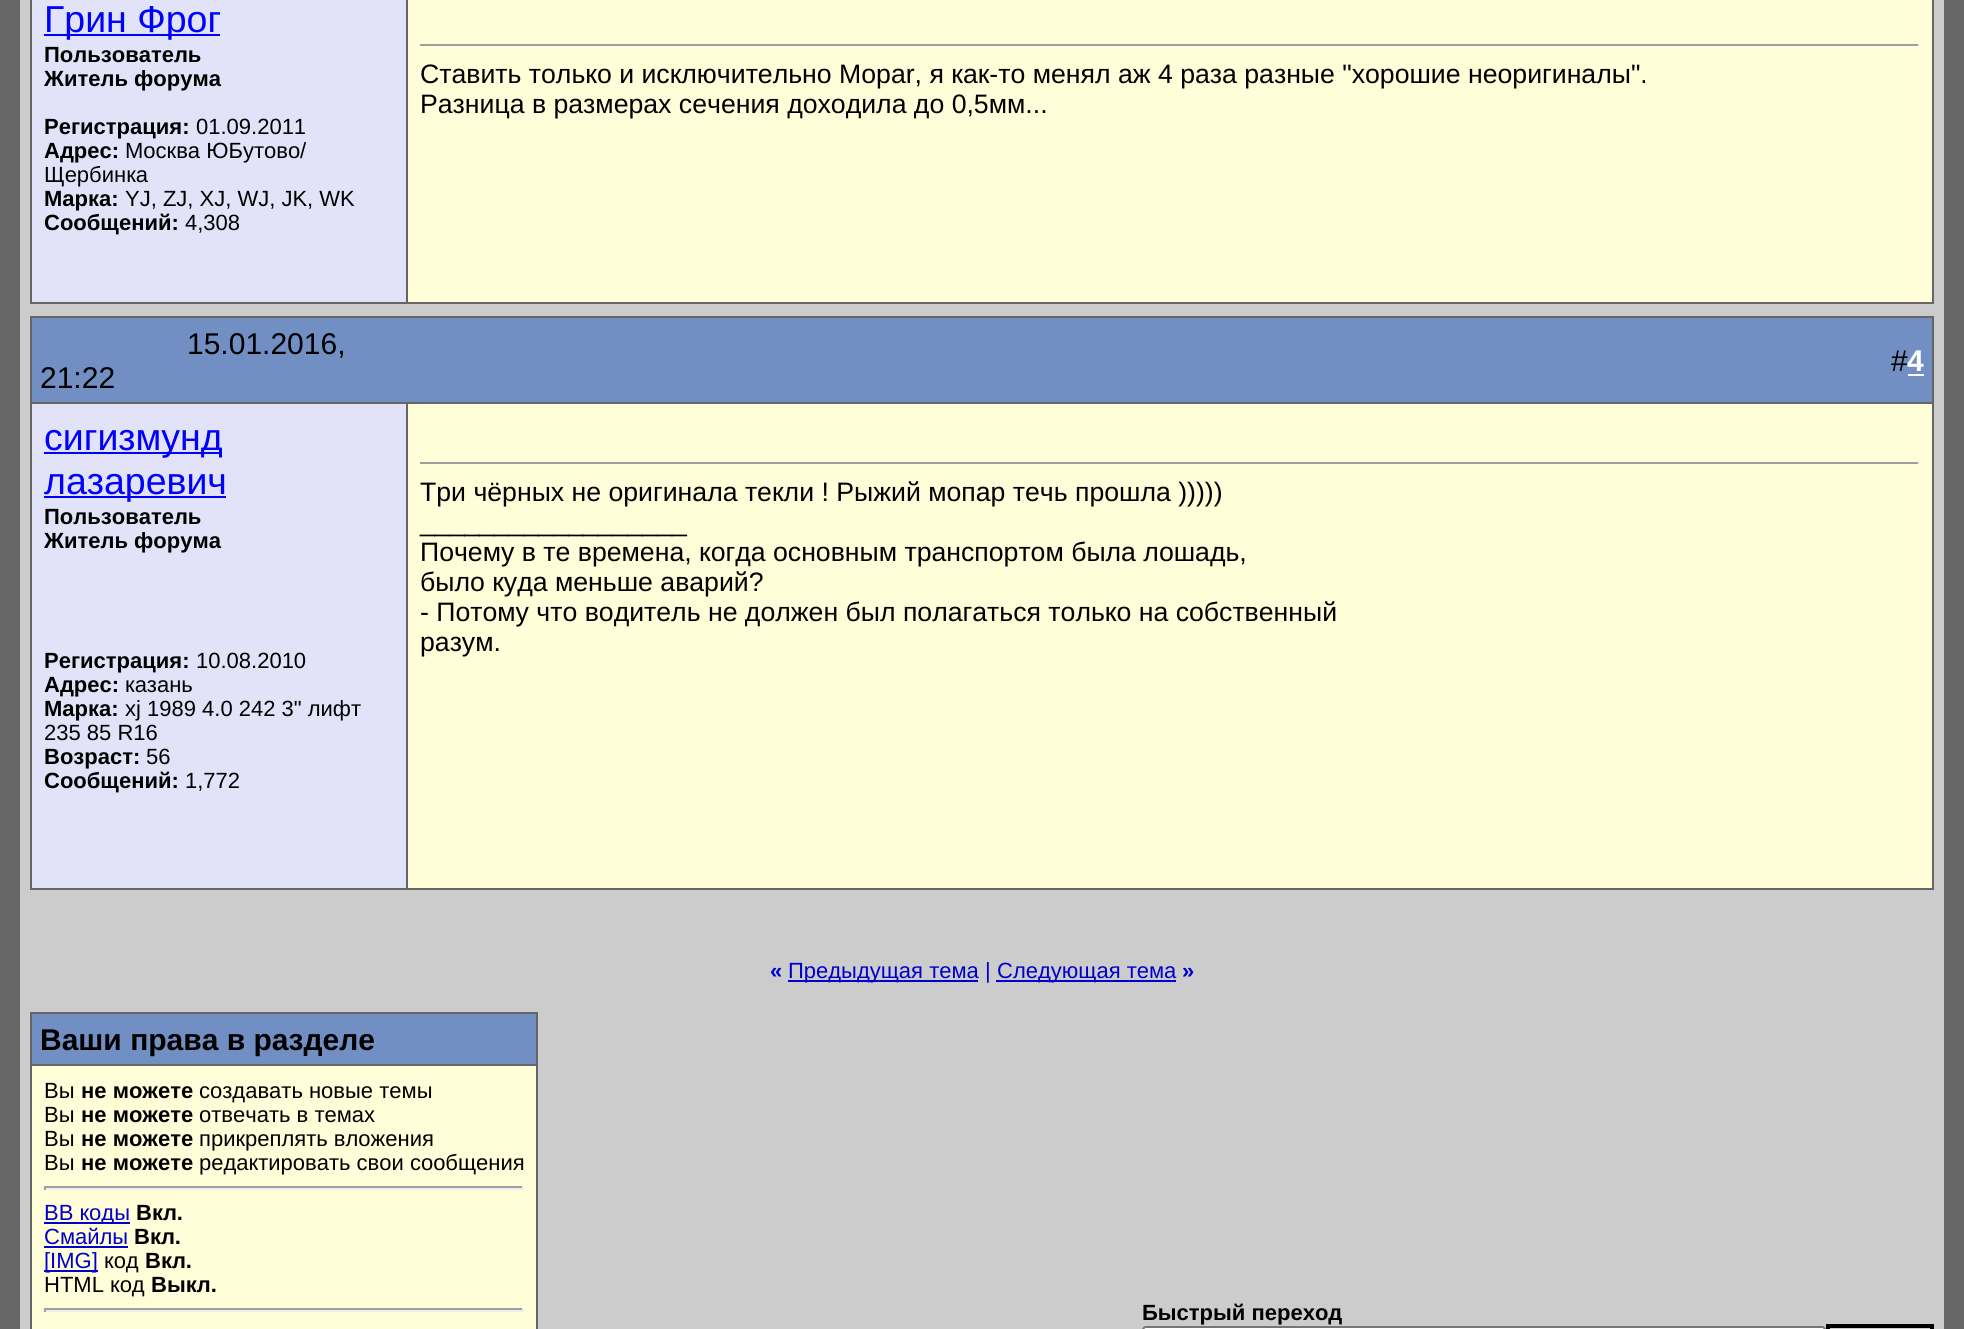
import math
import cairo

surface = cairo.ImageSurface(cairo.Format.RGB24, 1964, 1329)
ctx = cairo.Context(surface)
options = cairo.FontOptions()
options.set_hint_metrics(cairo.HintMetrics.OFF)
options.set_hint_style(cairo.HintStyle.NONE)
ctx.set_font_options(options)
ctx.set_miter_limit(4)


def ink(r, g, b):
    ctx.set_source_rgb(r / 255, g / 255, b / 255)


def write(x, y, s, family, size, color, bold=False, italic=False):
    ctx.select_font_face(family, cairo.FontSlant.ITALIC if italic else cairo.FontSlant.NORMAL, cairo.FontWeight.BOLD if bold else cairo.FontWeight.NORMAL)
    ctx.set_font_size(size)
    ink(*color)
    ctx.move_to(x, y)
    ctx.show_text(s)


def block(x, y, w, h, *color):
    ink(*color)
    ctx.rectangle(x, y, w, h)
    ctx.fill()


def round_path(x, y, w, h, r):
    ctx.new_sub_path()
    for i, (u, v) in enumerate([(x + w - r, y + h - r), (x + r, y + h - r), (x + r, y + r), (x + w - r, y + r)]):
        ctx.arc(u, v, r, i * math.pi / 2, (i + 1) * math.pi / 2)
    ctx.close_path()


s1 = dict(family="Liberation Sans", size=37.5, color=(0, 0, 255))
s2 = dict(family="Liberation Sans", size=22, color=(0, 0, 0), bold=True)
s3 = dict(family="Liberation Sans", size=22, color=(0, 0, 0))
s4 = dict(family="Liberation Sans", size=26.65, color=(0, 0, 0))
s5 = dict(family="Liberation Sans", size=30, color=(0, 0, 0))
s6 = dict(family="Liberation Sans", size=30, color=(255, 255, 255), bold=True)
s7 = dict(family="Liberation Sans", size=22, color=(0, 0, 204), bold=True)
s8 = dict(family="Liberation Sans", size=22, color=(0, 0, 204))
s9 = dict(family="Liberation Sans", size=30, color=(0, 0, 0), bold=True)

ink(102, 102, 102)
ctx.paint()
block(20, 0, 1924, 1329, 204, 204, 204)
block(32, 0, 374, 302, 226, 227, 248)
block(406, 0, 2, 304, 102, 102, 102)
block(30, 0, 2, 246, 102, 102, 102)
block(44, 34, 176, 2, 0, 0, 255)
write(44, 32, "Грин Фрог", **s1)
write(44, 62, "Пользователь", **s2)
write(44, 86, "Житель форума", **s2)
write(44, 134, "Регистрация:", **s2)
write(196, 134, "01.09.2011", **s3)
write(44, 158, "Адрес:", **s2)
write(125, 158, "Москва ЮБутово/", **s3)
write(44, 182, "Щербинка", **s3)
write(44, 206, "Марка:", **s2)
write(125, 206, "YJ, ZJ, XJ, WJ, JK, WK", **s3)
write(44, 230, "Сообщений:", **s2)
write(185, 230, "4,308", **s3)
block(408, 0, 1524, 302, 255, 254, 216)
block(1932, 0, 2, 304, 102, 102, 102)
block(420, 44, 1500, 2, 159, 159, 159)
block(1918, 44, 2, 2, 238, 238, 238)
write(420, 83, "Ставить только и исключительно Mopar, я как-то менял аж 4 раза разные \"хорошие неоригиналы\".", **s4)
write(420, 113, "Разница в размерах сечения доходила до 0,5мм...", **s4)
block(30, 302, 1904, 2, 102, 102, 102)
block(30, 246, 2, 58, 102, 102, 102)
block(32, 318, 1900, 84, 113, 143, 195)
block(30, 316, 1904, 2, 102, 102, 102)
block(30, 402, 378, 2, 102, 102, 102)
block(30, 316, 2, 488, 102, 102, 102)
write(187, 354, "15.01.2016,", **s5)
write(40, 388, "21:22", **s5)
block(1932, 316, 2, 574, 102, 102, 102)
block(408, 402, 1526, 2, 102, 102, 102)
write(1891, 371, "#", **s5)
write(1907, 371, "4", **s6)
block(1908, 374, 16, 2, 255, 255, 255)
block(32, 404, 374, 484, 226, 227, 248)
block(406, 404, 2, 486, 102, 102, 102)
block(44, 452, 178, 2, 0, 0, 255)
write(44, 450, "сигизмунд", **s1)
block(44, 496, 182, 2, 0, 0, 255)
write(44, 494, "лазаревич", **s1)
write(44, 524, "Пользователь", **s2)
write(44, 548, "Житель форума", **s2)
write(44, 668, "Регистрация:", **s2)
write(196, 668, "10.08.2010", **s3)
write(44, 692, "Адрес:", **s2)
write(125, 692, "казань", **s3)
write(44, 716, "Марка:", **s2)
write(125, 716, "xj 1989 4.0 242 3\" лифт", **s3)
write(44, 740, "235 85 R16", **s3)
write(44, 764, "Возраст:", **s2)
write(146, 764, "56", **s3)
write(44, 788, "Сообщений:", **s2)
write(185, 788, "1,772", **s3)
block(408, 404, 1524, 484, 255, 254, 216)
block(420, 462, 1500, 2, 159, 159, 159)
block(1918, 462, 2, 2, 238, 238, 238)
write(420, 501, "Три чёрных не оригинала текли ! Рыжий мопар течь прошла )))))", **s4)
write(420, 531, "__________________", **s4)
write(420, 561, "Почему в те времена, когда основным транспортом была лошадь,", **s4)
write(420, 591, "было куда меньше аварий?", **s4)
write(420, 621, "- Потому что водитель не должен был полагаться только на собственный", **s4)
write(420, 651, "разум.", **s4)
block(30, 888, 1904, 2, 102, 102, 102)
block(30, 804, 2, 86, 102, 102, 102)
write(770, 978, "«", **s7)
block(788, 980, 190, 2, 0, 0, 204)
write(788, 978, "Предыдущая тема |", **s8)
block(996, 980, 180, 2, 0, 0, 204)
write(997, 978, "Следующая тема", **s8)
write(1182, 978, "»", **s7)
block(30, 1012, 508, 317, 102, 102, 102)
block(32, 1014, 504, 50, 113, 143, 195)
write(40, 1050, "Ваши права в разделе", **s9)
block(32, 1066, 504, 263, 255, 254, 216)
write(44, 1098, "Вы", **s3)
write(81, 1098, "не можете", **s2)
write(199, 1098, "создавать новые темы", **s3)
write(44, 1122, "Вы", **s3)
write(81, 1122, "не можете", **s2)
write(199, 1122, "отвечать в темах", **s3)
write(44, 1146, "Вы", **s3)
write(81, 1146, "не можете", **s2)
write(199, 1146, "прикреплять вложения", **s3)
write(44, 1170, "Вы", **s3)
write(81, 1170, "не можете", **s2)
write(199, 1170, "редактировать свои сообщения", **s3)
block(44, 1186, 480, 2, 159, 159, 159)
block(522, 1186, 2, 4, 238, 238, 238)
block(44, 1188, 480, 2, 238, 238, 238)
block(44, 1186, 2, 4, 159, 159, 159)
block(44, 1222, 86, 2, 0, 0, 204)
write(44, 1220, "BB коды", **s8)
write(136, 1220, "Вкл.", **s2)
write(44, 1244, "Смайлы", **s8)
block(101, 1224, 13, 1, 255, 254, 216)
block(44, 1246, 84, 2, 0, 0, 204)
write(134, 1244, "Вкл.", **s2)
block(44, 1270, 54, 2, 0, 0, 204)
write(44, 1268, "[IMG]", **s8)
write(104, 1268, "код", **s3)
write(145, 1268, "Вкл.", **s2)
write(44, 1292, "HTML код", **s3)
write(151, 1292, "Выкл.", **s2)
block(44, 1308, 480, 2, 159, 159, 159)
block(522, 1308, 2, 4, 238, 238, 238)
block(44, 1310, 480, 2, 238, 238, 238)
block(44, 1308, 2, 4, 159, 159, 159)
write(1142, 1320, "Быстрый переход", **s2)
ink(255, 255, 255)
round_path(1143, 1327, 682, 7, 3)
ctx.fill_preserve()
ink(118, 118, 118)
ctx.stroke()
ctx.rectangle(1828, 1326, 104, 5)
ink(0, 0, 0)
ctx.set_line_width(4)
ctx.stroke()
surface.write_to_png("screenshot.png")
